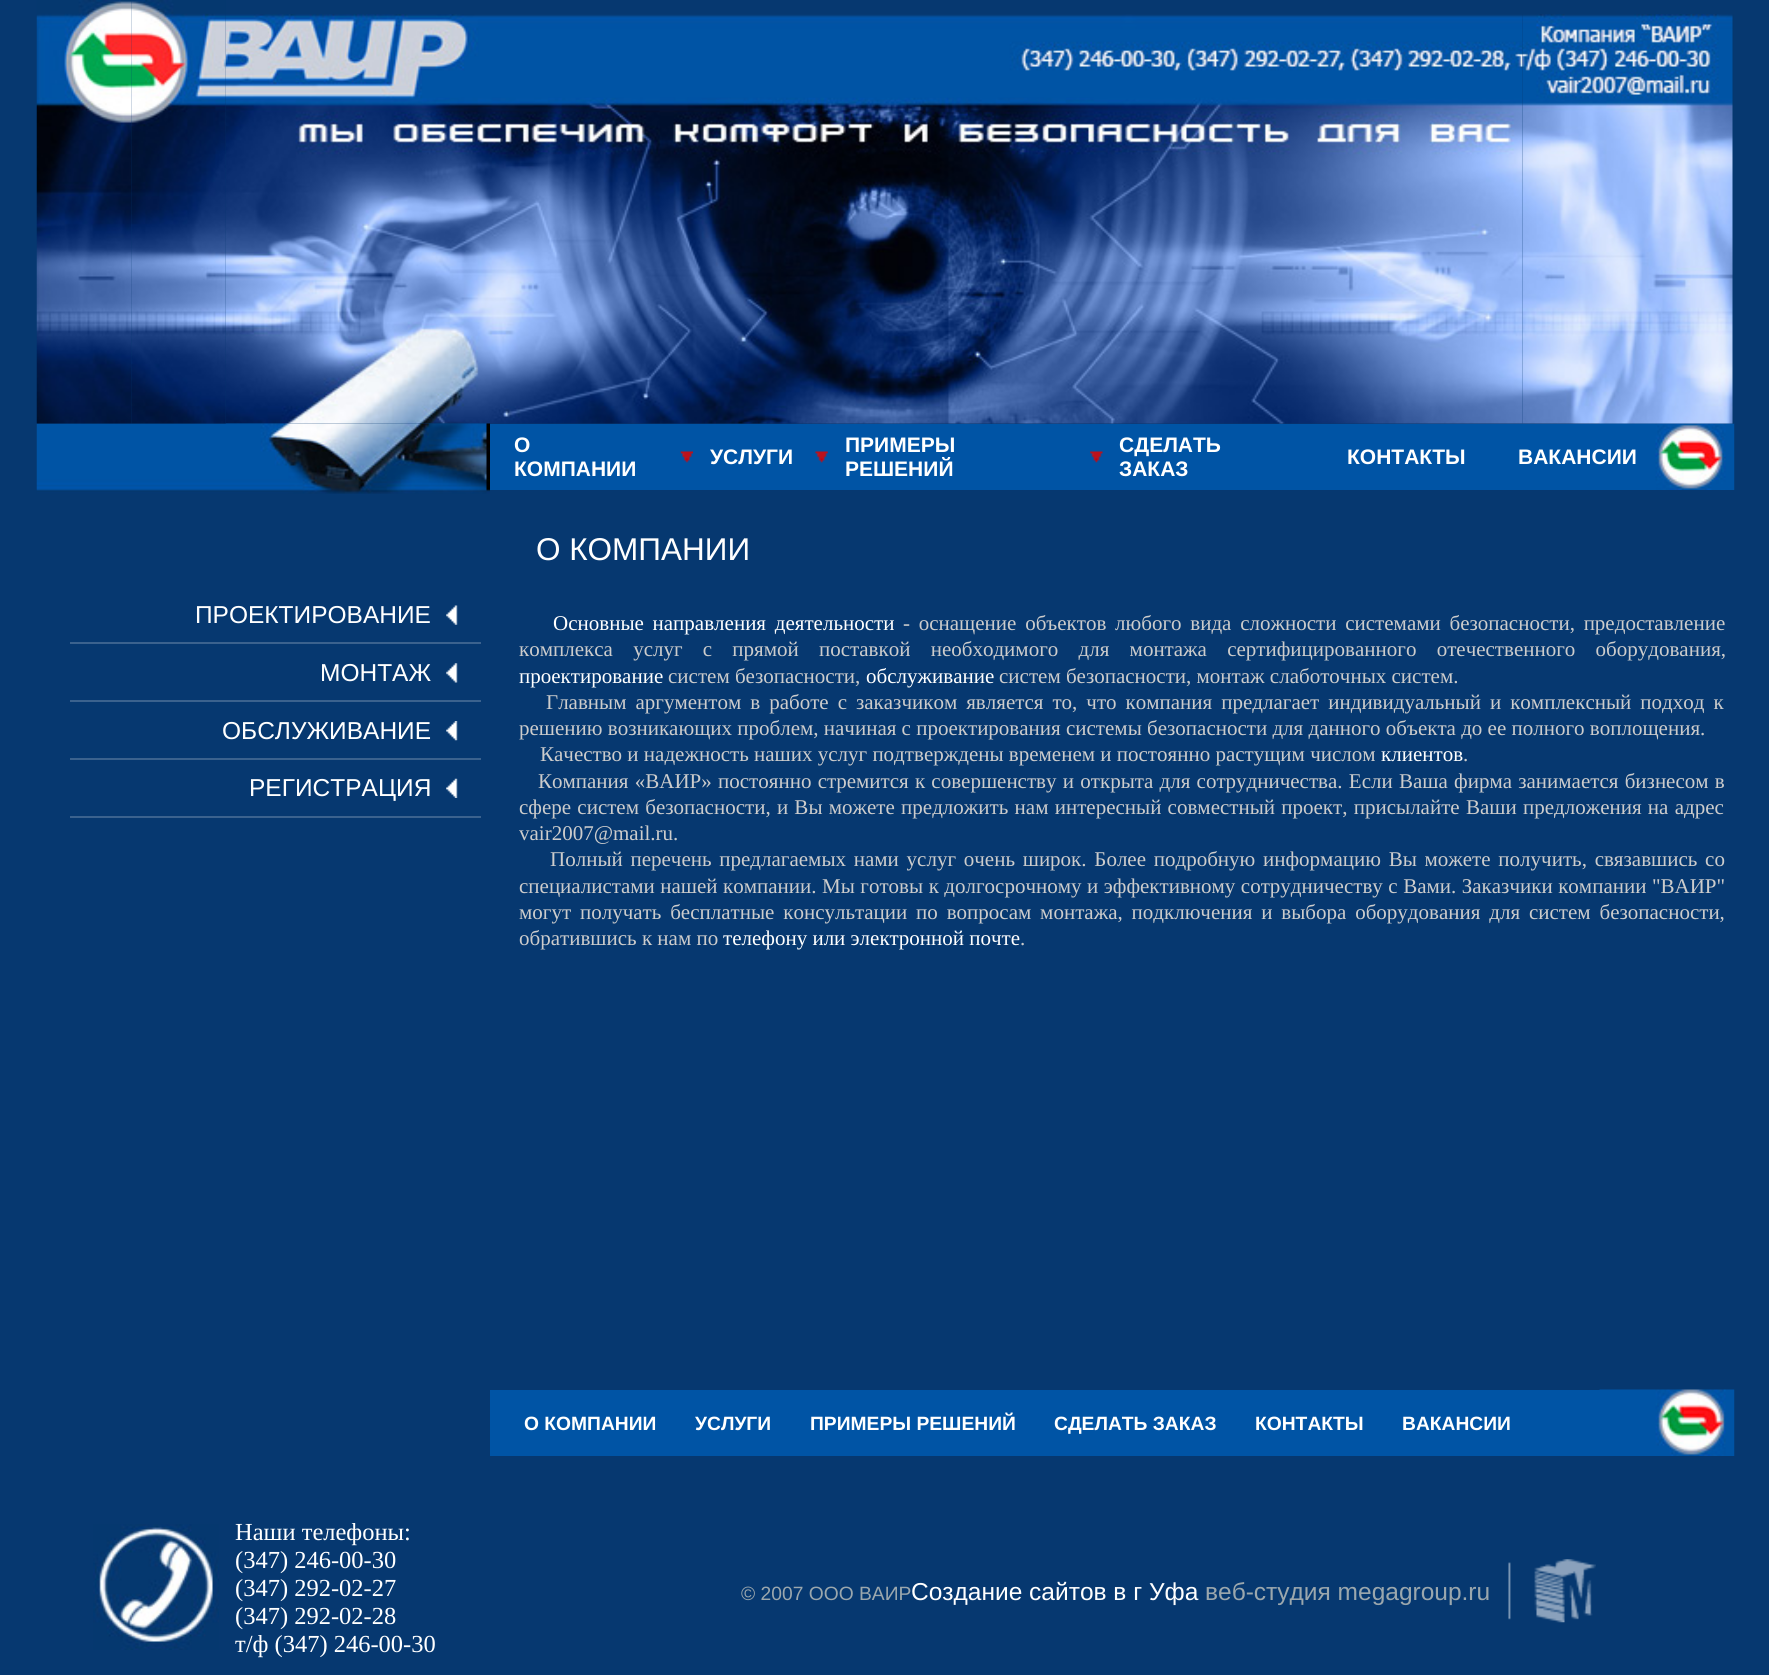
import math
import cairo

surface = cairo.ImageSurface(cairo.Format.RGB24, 1769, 1675)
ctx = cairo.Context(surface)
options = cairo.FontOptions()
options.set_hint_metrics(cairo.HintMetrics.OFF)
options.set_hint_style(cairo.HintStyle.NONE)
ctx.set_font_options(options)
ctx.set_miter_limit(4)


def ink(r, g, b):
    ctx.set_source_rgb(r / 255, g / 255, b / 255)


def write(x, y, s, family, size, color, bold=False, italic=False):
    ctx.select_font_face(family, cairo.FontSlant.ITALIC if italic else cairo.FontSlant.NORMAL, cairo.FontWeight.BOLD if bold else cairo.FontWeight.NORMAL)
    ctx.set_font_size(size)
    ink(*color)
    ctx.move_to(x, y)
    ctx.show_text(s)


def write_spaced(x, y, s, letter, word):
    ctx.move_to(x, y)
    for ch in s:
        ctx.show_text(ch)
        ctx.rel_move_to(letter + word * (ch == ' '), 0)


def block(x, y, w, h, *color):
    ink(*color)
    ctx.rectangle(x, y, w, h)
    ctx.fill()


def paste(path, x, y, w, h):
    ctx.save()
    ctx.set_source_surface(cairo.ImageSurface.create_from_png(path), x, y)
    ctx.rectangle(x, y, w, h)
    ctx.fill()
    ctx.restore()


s1 = dict(family="Liberation Sans", size=24.5, color=(255, 255, 255))
s2 = dict(family="Liberation Sans", size=21, color=(255, 255, 255), bold=True)
s3 = dict(family="Liberation Sans", size=31.5, color=(255, 255, 255))
s4 = dict(family="Liberation Serif", size=21, color=(255, 255, 255))
s5 = dict(family="Liberation Serif", size=21, color=(204, 204, 204))
s6 = dict(family="Liberation Sans", size=19.25, color=(255, 255, 255), bold=True)
s7 = dict(family="Liberation Serif", size=24.5, color=(255, 255, 255))
s8 = dict(family="Liberation Sans", size=19.25, color=(155, 167, 173))
s9 = dict(family="Liberation Sans", size=24.5, color=(155, 167, 173))

ink(6, 56, 112)
ctx.paint()
paste("pic3.png", 225, 14, 1298, 410)
paste("pic5.png", 36, 423, 454, 71)
paste("pic1.png", 36, 0, 96, 424)
paste("pic2.png", 131, 0, 95, 424)
block(490, 424, 1110, 66, 0, 84, 165)
paste("pic10.png", 1599, 423, 136, 67)
paste("pic4.png", 1522, 14, 212, 410)
paste("pic6.png", 446, 605, 12, 20)
block(70, 642, 411, 2, 59, 98, 142)
write(195, 623, "ПРОЕКТИРОВАНИЕ", **s1)
paste("pic7.png", 446, 663, 12, 20)
block(70, 700, 411, 2, 59, 98, 142)
write(320, 681, "МОНТАЖ", **s1)
paste("pic8.png", 446, 721, 12, 20)
block(70, 758, 411, 2, 59, 98, 142)
write(222, 739, "ОБСЛУЖИВАНИЕ", **s1)
paste("pic9.png", 446, 778, 12, 20)
block(70, 816, 411, 2, 59, 98, 142)
write(249, 796, "РЕГИСТРАЦИЯ", **s1)
paste("pic11.png", 680, 451, 13, 12)
write(514, 452, "О", **s2)
write(514, 476, "КОМПАНИИ", **s2)
paste("pic12.png", 815, 451, 13, 12)
write(710, 464, "УСЛУГИ", **s2)
paste("pic13.png", 1090, 451, 13, 12)
write(845, 452, "ПРИМЕРЫ", **s2)
write(845, 476, "РЕШЕНИЙ", **s2)
write(1119, 452, "СДЕЛАТЬ", **s2)
write(1119, 476, "ЗАКАЗ", **s2)
write(1347, 464, "КОНТАКТЫ", **s2)
write(1518, 464, "ВАКАНСИИ", **s2)
write(536, 560, "О КОМПАНИИ", **s3)
ctx.select_font_face("Liberation Serif")
ctx.set_font_size(21)
write_spaced(553, 630, "Основные направления деятельности", 0, 3.5)
ink(204, 204, 204)
write_spaced(903, 630, "- оснащение объектов любого вида сложности системами безопасности, предоставление", 0, 3.5)
write_spaced(519, 656, "комплекса услуг с прямой поставкой необходимого для монтажа сертифицированного отечественного оборудования,", 0, 15)
write(519, 683, "проектирование", **s4)
write(668, 683, "систем безопасности,", **s5)
write(866, 683, "обслуживание", **s4)
write(999, 683, "систем безопасности, монтаж слаботочных систем.", **s5)
write_spaced(546, 709, "Главным аргументом в работе с заказчиком является то, что компания предлагает индивидуальный и комплексный подход к", 0, 3.75)
write(519, 735, "решению возникающих проблем, начиная с проектирования системы безопасности для данного объекта до ее полного воплощения.", **s5)
write(540, 761, "Качество и надежность наших услуг подтверждены временем и постоянно растущим числом", **s5)
write(1381, 761, "клиентов", **s4)
write(1463, 761, ".", **s5)
write_spaced(538, 788, "Компания «ВАИР» постоянно стремится к совершенству и открыта для сотрудничества. Если Ваша фирма занимается бизнесом в", 0, 1)
write_spaced(519, 814, "сфере систем безопасности, и Вы можете предложить нам интересный совместный проект, присылайте Ваши предложения на адрес", 0, 1)
write(519, 840, "vair2007@mail.ru.", **s5)
write_spaced(550, 866, "Полный перечень предлагаемых нами услуг очень широк. Более подробную информацию Вы можете получить, связавшись со", 0, 2.5)
write_spaced(519, 893, "специалистами нашей компании. Мы готовы к долгосрочному и эффективному сотрудничеству с Вами. Заказчики компании \"ВАИР\"", 0, 0.25)
write_spaced(519, 919, "могут получать бесплатные консультации по вопросам монтажа, подключения и выбора оборудования для систем безопасности,", 0, 3.6)
write(519, 945, "обратившись к нам по", **s5)
write(723, 945, "телефону или электронной почте", **s4)
write(1020, 945, ".", **s5)
block(490, 1390, 1110, 66, 0, 84, 165)
paste("pic14.png", 1599, 1389, 136, 67)
write(524, 1430, "О КОМПАНИИ", **s6)
write(695, 1430, "УСЛУГИ", **s6)
write(810, 1430, "ПРИМЕРЫ РЕШЕНИЙ", **s6)
write(1054, 1430, "СДЕЛАТЬ ЗАКАЗ", **s6)
write(1255, 1430, "КОНТАКТЫ", **s6)
write(1402, 1430, "ВАКАНСИИ", **s6)
paste("pic15.png", 93, 1524, 126, 126)
write(235, 1540, "Наши телефоны:", **s7)
write(235, 1568, "(347) 246-00-30", **s7)
write(235, 1596, "(347) 292-02-27", **s7)
write(235, 1624, "(347) 292-02-28", **s7)
write(235, 1652, "т/ф (347) 246-00-30", **s7)
write(741, 1600, "© 2007 ООО ВАИР", **s8)
write(911, 1600, "Создание сайтов в г Уфа", **s1)
write(1205, 1600, "веб-студия megagroup.ru", **s9)
paste("pic16.png", 1508, 1559, 88, 64)
surface.write_to_png("screenshot.png")
